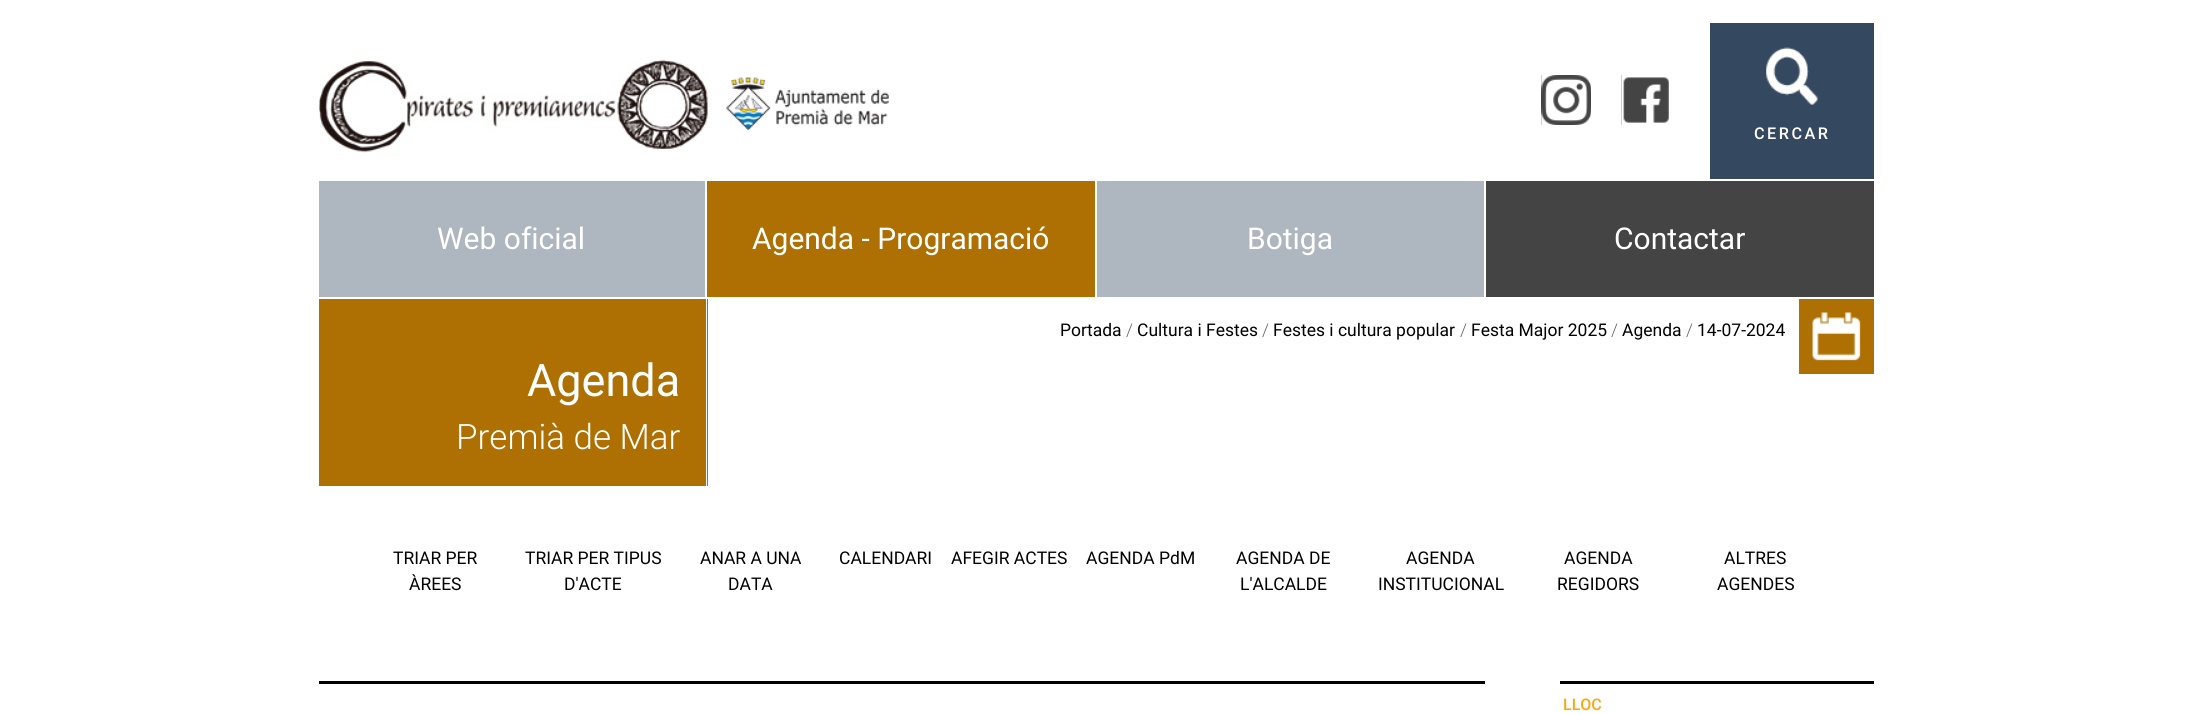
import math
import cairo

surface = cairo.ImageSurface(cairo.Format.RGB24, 2191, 714)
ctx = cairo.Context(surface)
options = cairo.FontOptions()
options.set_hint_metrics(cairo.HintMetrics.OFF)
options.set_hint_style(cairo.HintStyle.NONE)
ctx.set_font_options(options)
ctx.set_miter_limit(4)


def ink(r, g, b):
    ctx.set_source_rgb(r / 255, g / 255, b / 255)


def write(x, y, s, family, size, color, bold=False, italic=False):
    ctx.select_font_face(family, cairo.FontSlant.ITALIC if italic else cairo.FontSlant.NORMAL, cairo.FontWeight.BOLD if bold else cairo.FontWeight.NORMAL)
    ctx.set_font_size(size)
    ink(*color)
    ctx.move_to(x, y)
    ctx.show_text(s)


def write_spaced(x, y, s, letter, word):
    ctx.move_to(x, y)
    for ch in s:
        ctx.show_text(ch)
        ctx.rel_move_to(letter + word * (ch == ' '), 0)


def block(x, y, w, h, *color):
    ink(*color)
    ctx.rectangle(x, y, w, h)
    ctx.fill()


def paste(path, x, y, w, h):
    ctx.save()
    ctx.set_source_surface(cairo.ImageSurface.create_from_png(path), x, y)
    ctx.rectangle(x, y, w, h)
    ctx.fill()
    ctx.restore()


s1 = dict(family="Roboto", size=30, color=(255, 255, 255))
s2 = dict(family="Roboto", size=17.5, color=(0, 0, 0))
s3 = dict(family="Roboto Light", size=17.5, color=(102, 102, 102))
s4 = dict(family="Roboto", size=45, color=(255, 255, 255))
s5 = dict(family="Roboto Light", size=35, color=(255, 255, 255))
s6 = dict(family="Roboto Medium", size=16, color=(255, 167, 10))

ink(255, 255, 255)
ctx.paint()
paste("pic1.png", 318, 59, 390, 94)
paste("pic2.png", 726, 77, 163, 53)
block(1710, 23, 164, 156, 52, 73, 95)
paste("pic3.png", 1766, 47, 52, 58)
ctx.select_font_face("Roboto Medium")
ctx.set_font_size(16.25)
ink(255, 255, 255)
write_spaced(1754, 139, "CERCAR", 2.5, 0)
block(1541, 75, 50, 50, 68, 68, 68)
paste("pic4.png", 1541, 75, 50, 50)
block(1621, 75, 48, 50, 68, 68, 68)
paste("pic5.png", 1621, 75, 50, 50)
block(319, 181, 386, 116, 174, 182, 191)
write(437, 249, "Web oficial", **s1)
block(707, 181, 388, 116, 174, 112, 3)
write(752, 249, "Agenda - Programació", **s1)
block(1097, 181, 387, 116, 174, 182, 191)
write(1247, 249, "Botiga", **s1)
block(1486, 181, 388, 116, 68, 68, 68)
write(1614, 249, "Contactar", **s1)
write(1060, 336, "Portada", **s2)
write(1126, 336, "/", **s3)
write(1137, 336, "Cultura i Festes", **s2)
write(1262, 336, "/", **s3)
write(1273, 336, "Festes i cultura popular", **s2)
write(1460, 336, "/", **s3)
write(1471, 336, "Festa Major 2025", **s2)
write(1611, 336, "/", **s3)
write(1622, 336, "Agenda", **s2)
write(1686, 336, "/", **s3)
write(1697, 336, "14-07-2024", **s2)
block(1799, 299, 75, 75, 174, 112, 3)
paste("pic6.png", 1812, 312, 49, 49)
block(319, 299, 389, 187, 174, 112, 3)
block(706, 299, 1, 187, 255, 255, 255)
write(527, 396, "Agenda", **s4)
write(456, 449, "Premià de Mar", **s5)
write(393, 564, "TRIAR PER", **s2)
write(409, 590, "ÀREES", **s2)
write(525, 564, "TRIAR PER TIPUS", **s2)
write(564, 590, "D'ACTE", **s2)
write(700, 564, "ANAR A UNA", **s2)
write(728, 590, "DATA", **s2)
write(839, 564, "CALENDARI", **s2)
write(951, 564, "AFEGIR ACTES", **s2)
write(1086, 564, "AGENDA PdM", **s2)
write(1236, 564, "AGENDA DE", **s2)
write(1240, 590, "L'ALCALDE", **s2)
write(1406, 564, "AGENDA", **s2)
write(1378, 590, "INSTITUCIONAL", **s2)
write(1564, 564, "AGENDA", **s2)
write(1557, 590, "REGIDORS", **s2)
write(1724, 564, "ALTRES", **s2)
write(1717, 590, "AGENDES", **s2)
block(319, 681, 1166, 3, 0, 0, 0)
block(1560, 681, 314, 3, 0, 0, 0)
write(1563, 710, "LLOC", **s6)
surface.write_to_png("screenshot.png")
